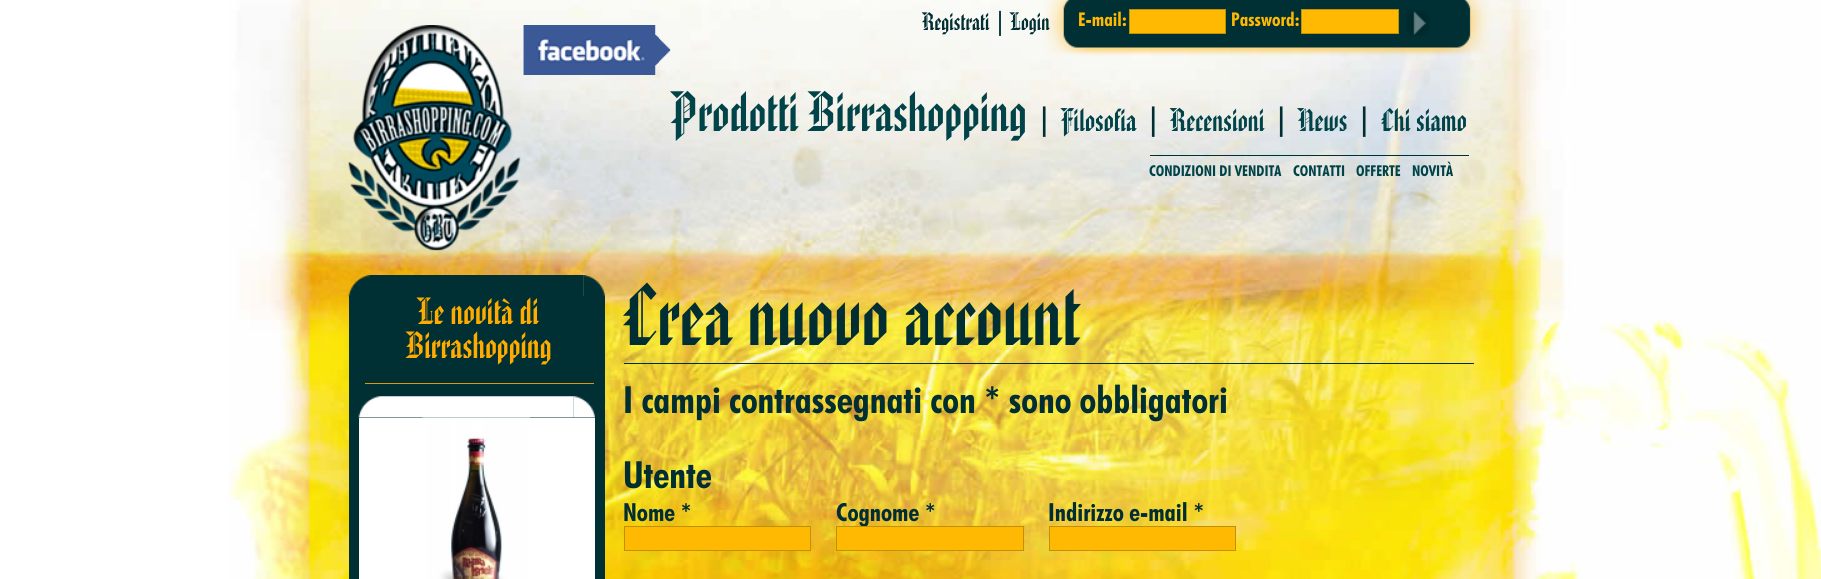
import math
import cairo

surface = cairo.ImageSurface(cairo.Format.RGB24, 1821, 579)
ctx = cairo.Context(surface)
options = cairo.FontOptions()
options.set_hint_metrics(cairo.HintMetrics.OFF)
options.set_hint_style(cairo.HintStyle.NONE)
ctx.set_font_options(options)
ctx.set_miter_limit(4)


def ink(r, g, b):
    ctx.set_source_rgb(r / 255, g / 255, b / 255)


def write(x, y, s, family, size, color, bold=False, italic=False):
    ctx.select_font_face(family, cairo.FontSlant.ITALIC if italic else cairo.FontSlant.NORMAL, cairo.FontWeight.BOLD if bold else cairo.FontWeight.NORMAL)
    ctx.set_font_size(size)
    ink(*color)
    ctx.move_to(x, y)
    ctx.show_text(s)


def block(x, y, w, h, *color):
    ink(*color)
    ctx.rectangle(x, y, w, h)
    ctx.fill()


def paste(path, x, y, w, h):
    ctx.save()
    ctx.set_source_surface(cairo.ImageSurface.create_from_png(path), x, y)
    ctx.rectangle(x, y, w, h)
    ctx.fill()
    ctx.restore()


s1 = dict(family="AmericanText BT", size=25, color=(0, 46, 51))
s2 = dict(family="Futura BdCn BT", size=19, color=(255, 185, 3), bold=True)
s3 = dict(family="AmericanText BT", size=56.25, color=(0, 67, 73))
s4 = dict(family="Liberation Sans", size=32.5, color=(0, 46, 51))
s5 = dict(family="AmericanText BT", size=32.5, color=(0, 67, 73))
s6 = dict(family="Futura BdCn BT", size=15, color=(0, 67, 73), bold=True)
s7 = dict(family="AmericanText BT", size=37.5, color=(255, 171, 0))
s8 = dict(family="AmericanText BT", size=87.5, color=(0, 46, 51))
s9 = dict(family="Futura BdCn BT", size=37.5, color=(0, 46, 51), bold=True)
s10 = dict(family="Futura BdCn BT", size=25, color=(0, 46, 51), bold=True)

ink(255, 255, 255)
ctx.paint()
paste("pic1.png", 228, 0, 1593, 579)
paste("pic2.png", 348, 25, 173, 226)
paste("pic3.png", 523, 25, 136, 50)
paste("pic4.png", 523, 25, 148, 50)
paste("pic5.png", 1044, 0, 447, 56)
write(922, 30, "Registrati | Login", **s1)
write(1078, 26, "E-mail:", **s2)
ctx.rectangle(1129.5, 9.5, 96, 24)
ctx.fill_preserve()
ink(192, 145, 0)
ctx.set_line_width(1)
ctx.stroke()
write(1231, 26, "Password:", **s2)
ctx.rectangle(1301.5, 9.5, 97, 24)
ctx.fill_preserve()
ink(192, 145, 0)
ctx.stroke()
paste("pic6.png", 1406, 10, 24, 26)
write(671, 131, "Prodotti Birrashopping", **s3)
write(1040, 130, "|", **s4)
write(1061, 131, "Filosofia", **s5)
write(1149, 130, "|", **s4)
write(1170, 131, "Recensioni", **s5)
write(1277, 130, "|", **s4)
write(1298, 131, "News", **s5)
write(1360, 130, "|", **s4)
write(1381, 131, "Chi siamo", **s5)
block(1150, 155, 319, 1, 0, 48, 51)
write(1149, 176, "CONDIZIONI DI VENDITA", **s6)
write(1293, 176, "CONTATTI", **s6)
write(1356, 176, "OFFERTE", **s6)
write(1412, 176, "NOVITÀ", **s6)
block(349, 296, 256, 283, 0, 48, 52)
paste("pic7.png", 348, 275, 236, 22)
paste("pic8.png", 583, 275, 22, 21)
block(365, 383, 229, 1, 222, 155, 7)
write(418, 324, "Le novità di", **s7)
write(406, 358, "Birrashopping", **s7)
paste("pic9.png", 358, 396, 216, 22)
paste("pic10.png", 573, 396, 22, 22)
block(359, 418, 236, 161, 255, 255, 255)
paste("pic11.png", 422, 417, 108, 162)
block(624, 363, 850, 1, 0, 47, 51)
write(623, 345, "Crea nuovo account", **s8)
write(623, 413, "I campi contrassegnati con * sono obbligatori", **s9)
write(623, 488, "Utente", **s9)
write(623, 521, "Nome *", **s10)
ink(255, 185, 3)
ctx.rectangle(624.5, 526.5, 186, 24)
ctx.fill_preserve()
ink(192, 145, 0)
ctx.stroke()
write(836, 521, "Cognome *", **s10)
ink(255, 185, 3)
ctx.rectangle(836.5, 526.5, 187, 24)
ctx.fill_preserve()
ink(192, 145, 0)
ctx.stroke()
write(1048, 521, "Indirizzo e-mail *", **s10)
ink(255, 185, 3)
ctx.rectangle(1049.5, 526.5, 186, 24)
ctx.fill_preserve()
ink(192, 145, 0)
ctx.stroke()
surface.write_to_png("screenshot.png")
